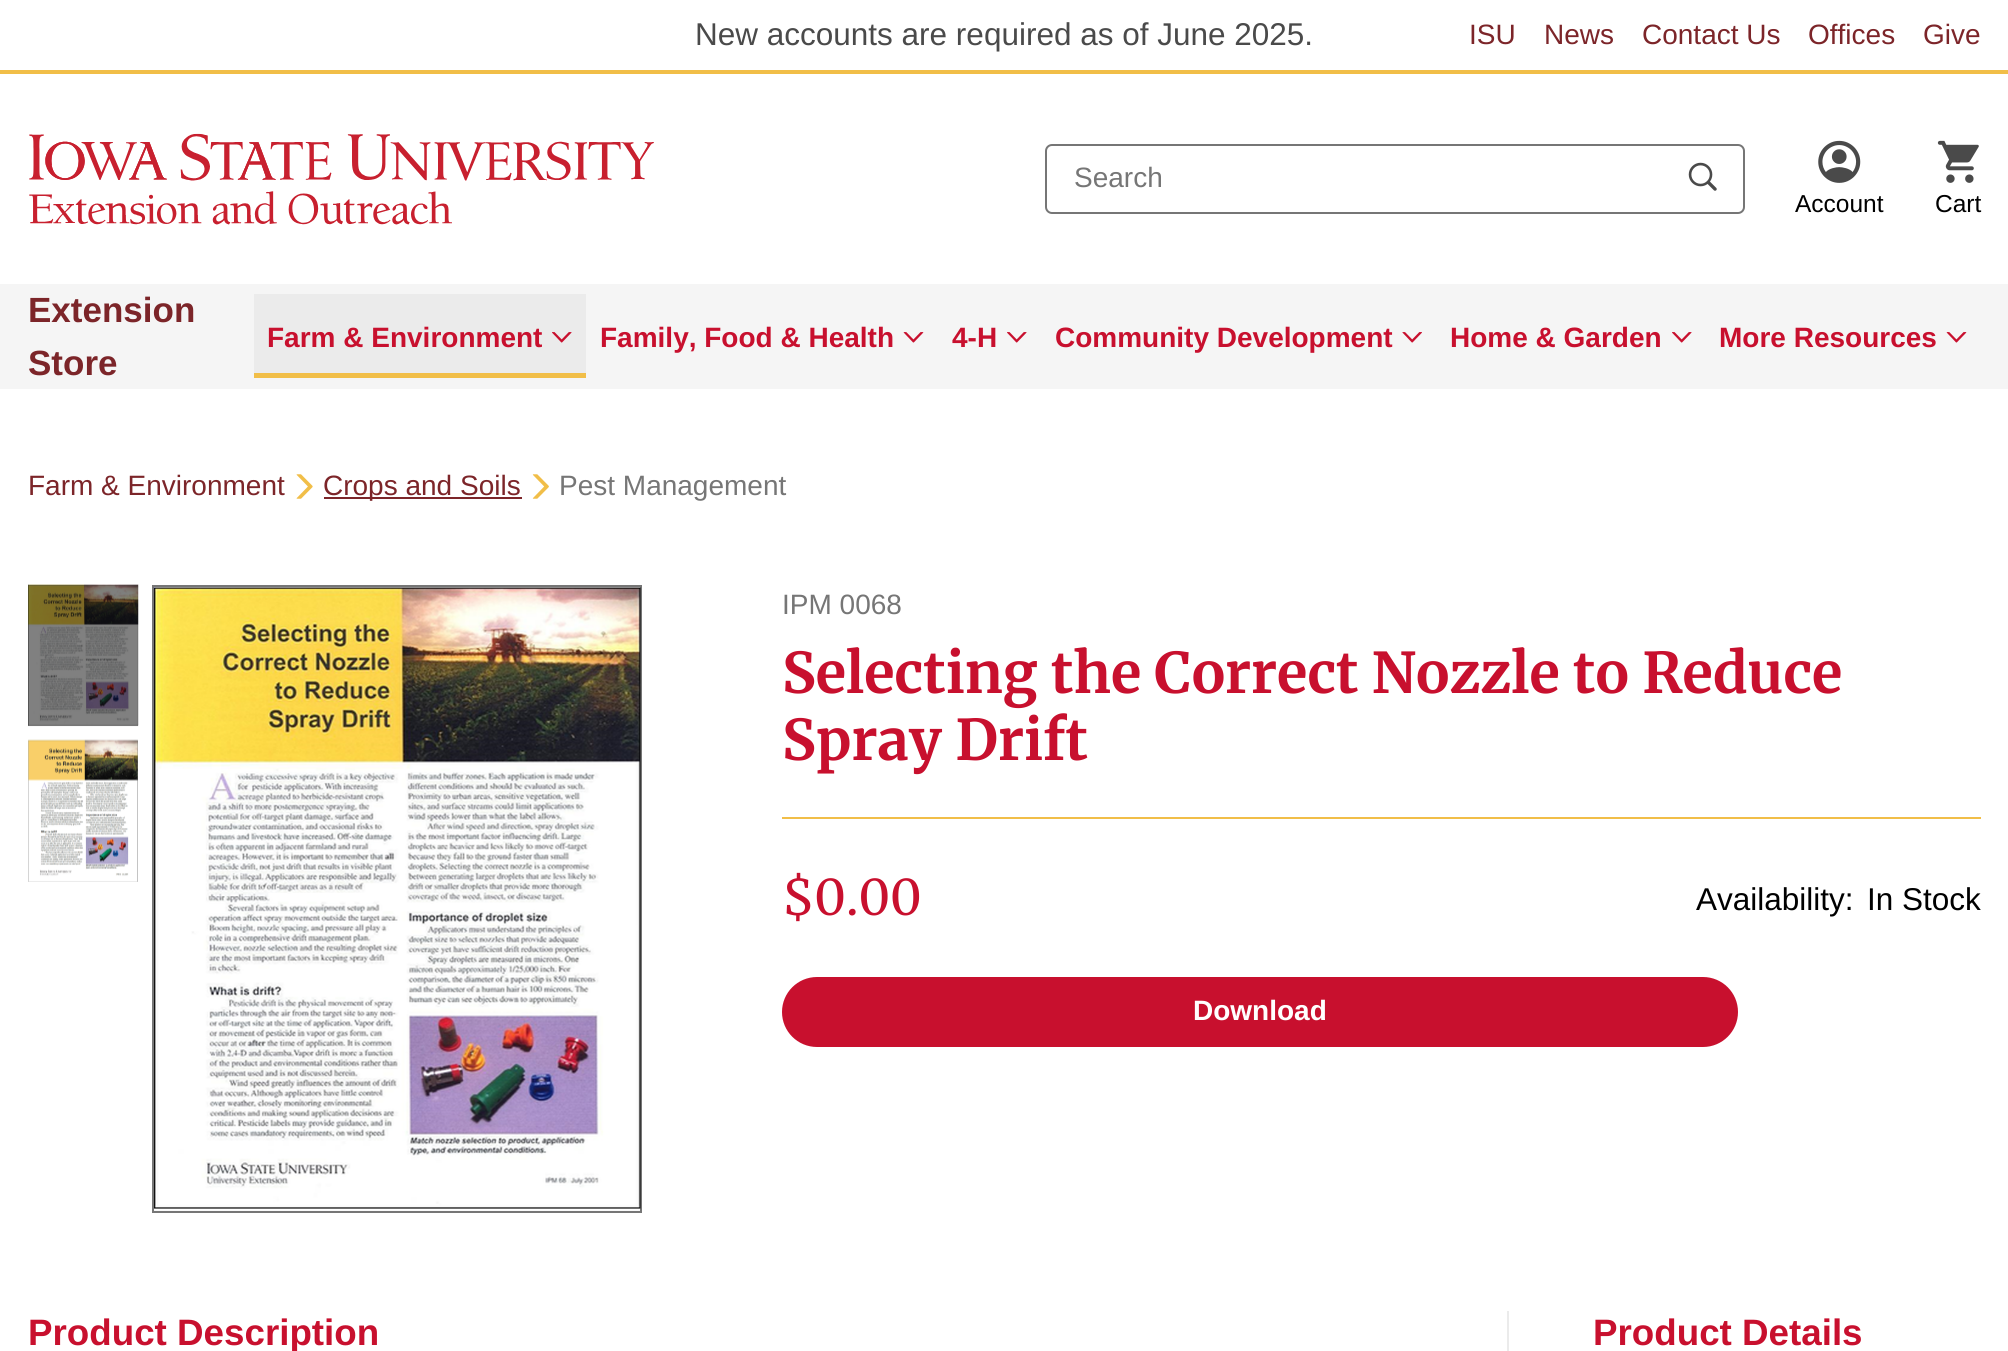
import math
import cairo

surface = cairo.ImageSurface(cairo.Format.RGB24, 2008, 1351)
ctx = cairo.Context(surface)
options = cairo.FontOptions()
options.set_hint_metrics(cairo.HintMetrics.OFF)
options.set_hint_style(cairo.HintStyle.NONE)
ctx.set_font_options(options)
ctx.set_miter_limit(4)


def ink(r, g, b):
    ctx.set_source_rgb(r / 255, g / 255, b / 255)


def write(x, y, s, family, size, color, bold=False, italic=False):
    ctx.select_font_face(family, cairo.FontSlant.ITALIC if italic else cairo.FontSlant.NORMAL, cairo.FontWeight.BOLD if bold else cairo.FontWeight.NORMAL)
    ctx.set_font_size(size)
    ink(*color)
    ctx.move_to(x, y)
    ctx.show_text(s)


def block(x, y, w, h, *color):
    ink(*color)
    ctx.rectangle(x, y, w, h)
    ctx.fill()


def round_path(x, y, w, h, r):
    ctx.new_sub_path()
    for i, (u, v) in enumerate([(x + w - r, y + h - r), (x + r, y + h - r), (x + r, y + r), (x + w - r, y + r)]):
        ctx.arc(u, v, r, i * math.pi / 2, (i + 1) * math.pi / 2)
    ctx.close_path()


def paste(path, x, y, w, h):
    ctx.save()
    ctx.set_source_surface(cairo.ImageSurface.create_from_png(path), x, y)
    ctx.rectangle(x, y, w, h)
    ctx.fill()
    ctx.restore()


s1 = dict(family="Liberation Sans", size=31.5, color=(74, 74, 74))
s2 = dict(family="Liberation Sans", size=28, color=(124, 37, 41))
s3 = dict(family="Liberation Sans", size=28, color=(118, 118, 118))
s4 = dict(family="Liberation Sans", size=24.5, color=(0, 0, 0))
s5 = dict(family="Liberation Sans", size=35, color=(124, 37, 41), bold=True)
s6 = dict(family="Liberation Sans", size=28, color=(200, 16, 46), bold=True)
s7 = dict(family="Merriweather", size=56, color=(200, 16, 46), bold=True)
s8 = dict(family="Merriweather", size=49, color=(200, 16, 46))
s9 = dict(family="Liberation Sans", size=31.5, color=(0, 0, 0))
s10 = dict(family="Liberation Sans", size=28, color=(255, 255, 255), bold=True)
s11 = dict(family="Liberation Sans", size=36.75, color=(200, 16, 46), bold=True)

ink(255, 255, 255)
ctx.paint()
block(28, 585, 110, 141, 128, 128, 128)
block(0, 70, 2008, 4, 241, 190, 72)
write(695, 45, "New accounts are required as of June 2025.", **s1)
write(1469, 44, "ISU", **s2)
write(1544, 44, "News", **s2)
write(1642, 44, "Contact Us", **s2)
write(1808, 44, "Offices", **s2)
write(1923, 44, "Give", **s2)
paste("pic1.png", 29, 133, 625, 92)
round_path(1046, 145, 698, 68, 6)
ink(118, 118, 118)
ctx.stroke()
write(1074, 187, "Search", **s3)
paste("pic2.png", 1688, 162, 29, 29)
paste("pic3.png", 1818, 140, 43, 43)
write(1795, 212, "Account", **s4)
paste("pic4.png", 1937, 140, 42, 43)
write(1935, 212, "Cart", **s4)
block(0, 284, 2008, 105, 245, 245, 245)
write(28, 322, "Extension", **s5)
write(28, 375, "Store", **s5)
block(254, 294, 332, 79, 235, 235, 235)
write(267, 347, "Farm & Environment", **s6)
paste("pic5.png", 552, 332, 20, 11)
block(254, 373, 332, 5, 241, 190, 72)
write(600, 347, "Family, Food & Health", **s6)
paste("pic6.png", 903, 332, 21, 11)
write(952, 347, "4-H", **s6)
paste("pic7.png", 1007, 332, 20, 11)
write(1055, 347, "Community Development", **s6)
paste("pic8.png", 1402, 332, 20, 11)
write(1450, 347, "Home & Garden", **s6)
paste("pic7.png", 1672, 332, 20, 11)
write(1719, 347, "More Resources", **s6)
paste("pic6.png", 1946, 332, 21, 11)
write(28, 495, "Farm & Environment", **s2)
paste("pic9.png", 296, 474, 17, 25)
block(324, 497, 198, 2, 124, 37, 41)
write(323, 495, "Crops and Soils", **s2)
paste("pic10.png", 532, 474, 17, 25)
write(559, 495, "Pest Management", **s3)
paste("pic11.png", 28, 584, 111, 143)
paste("pic12.png", 28, 739, 110, 143)
ctx.rectangle(153, 586, 488, 626)
ctx.stroke()
paste("pic13.png", 154, 587, 487, 624)
write(782, 614, "IPM 0068", **s3)
write(782, 693, "Selecting the Correct Nozzle to Reduce", **s7)
write(782, 760, "Spray Drift", **s7)
block(782, 817, 1199, 2, 241, 190, 72)
write(782, 915, "$0.00", **s8)
write(1696, 910, "Availability:", **s9)
write(1867, 910, "In Stock", **s9)
ink(200, 16, 46)
round_path(783, 978, 954, 68, 34)
ctx.fill_preserve()
ctx.stroke()
write(1193, 1020, "Download", **s10)
write(28, 1345, "Product Description", **s11)
block(1507, 1311, 2, 40, 235, 235, 235)
write(1593, 1345, "Product Details", **s11)
surface.write_to_png("screenshot.png")
